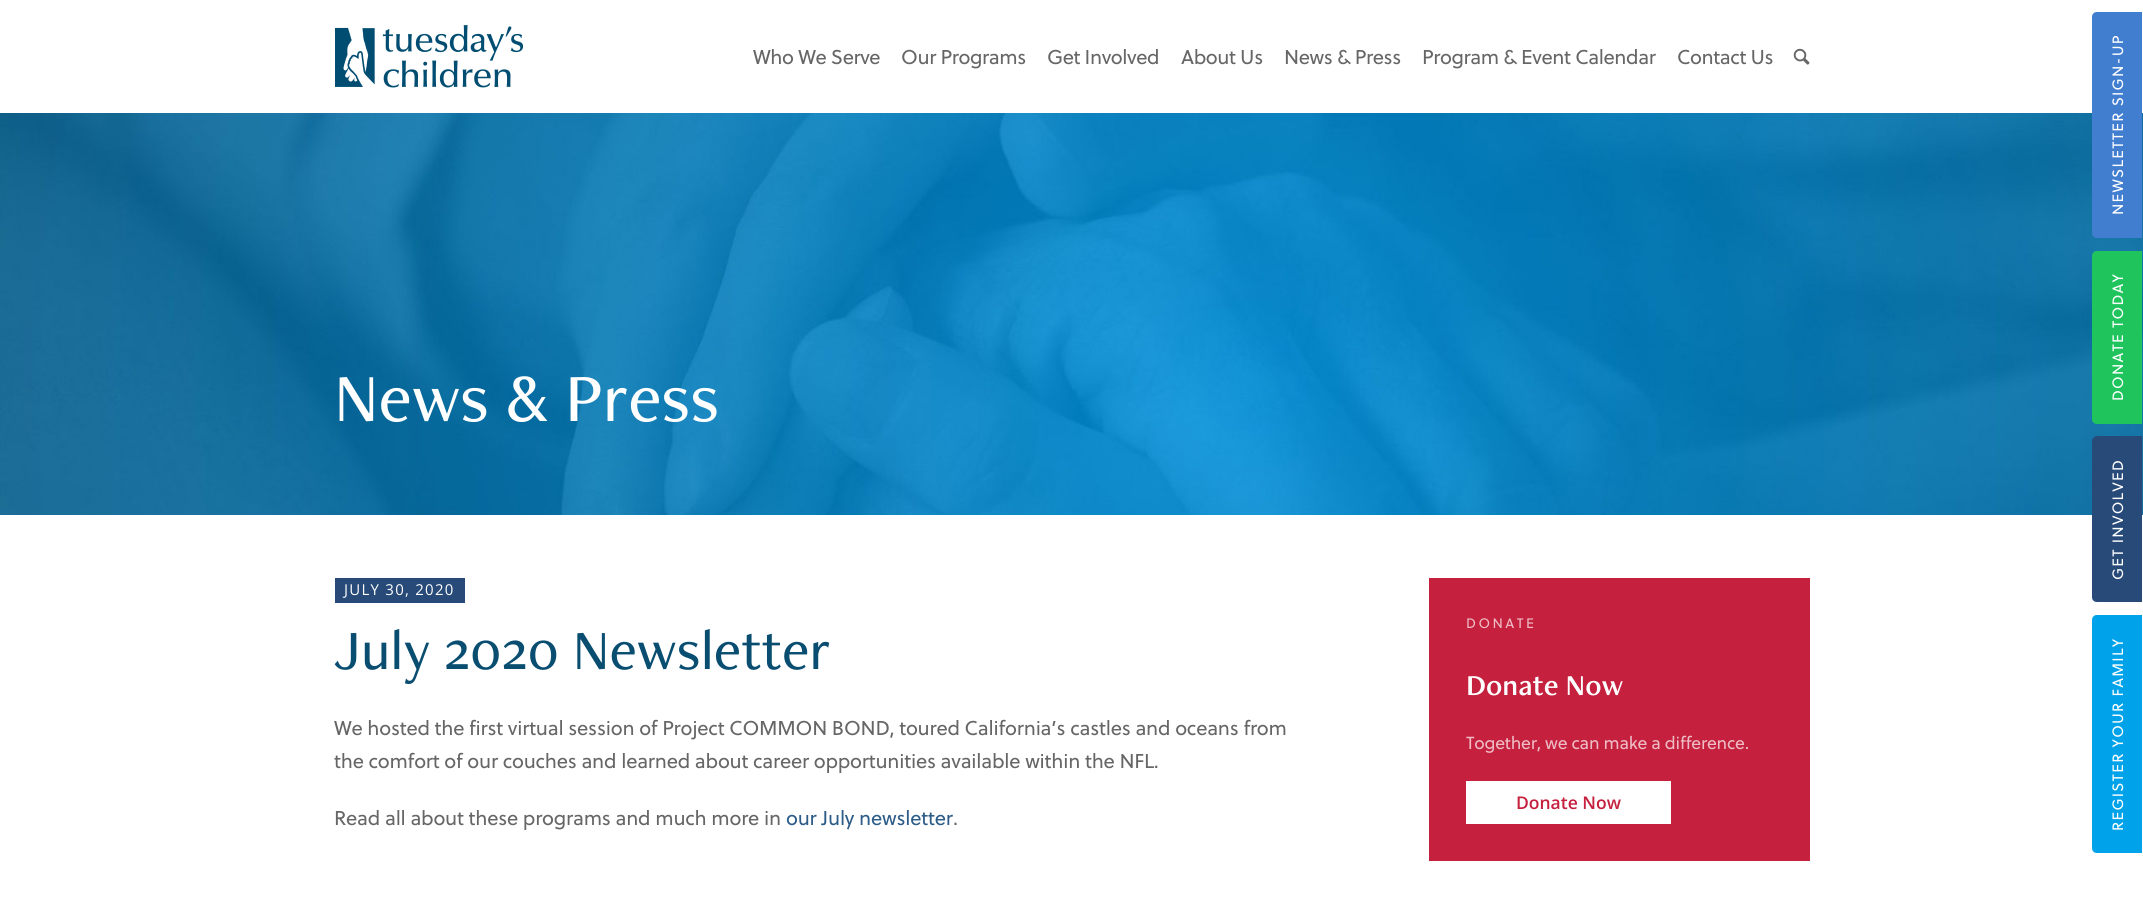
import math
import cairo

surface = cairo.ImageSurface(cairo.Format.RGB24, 2143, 906)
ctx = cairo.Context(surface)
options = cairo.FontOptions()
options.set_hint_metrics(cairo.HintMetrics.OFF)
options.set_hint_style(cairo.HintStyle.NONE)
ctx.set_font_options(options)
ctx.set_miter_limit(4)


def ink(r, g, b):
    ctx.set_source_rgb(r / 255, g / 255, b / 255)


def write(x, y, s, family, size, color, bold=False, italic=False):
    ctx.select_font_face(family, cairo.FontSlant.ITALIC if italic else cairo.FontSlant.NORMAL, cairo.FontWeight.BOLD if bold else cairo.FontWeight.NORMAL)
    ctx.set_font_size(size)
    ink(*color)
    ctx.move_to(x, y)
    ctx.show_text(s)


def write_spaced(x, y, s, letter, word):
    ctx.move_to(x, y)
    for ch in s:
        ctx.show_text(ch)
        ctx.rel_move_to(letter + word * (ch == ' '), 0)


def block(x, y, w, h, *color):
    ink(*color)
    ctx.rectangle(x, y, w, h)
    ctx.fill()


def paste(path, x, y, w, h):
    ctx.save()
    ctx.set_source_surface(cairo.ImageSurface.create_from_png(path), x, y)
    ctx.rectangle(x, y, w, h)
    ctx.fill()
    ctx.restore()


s1 = dict(family="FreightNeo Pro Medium", size=57.5, color=(9, 77, 112))
s2 = dict(family="FreightNeo Pro", size=30, color=(255, 255, 255))
s3 = dict(family="Open Sans SemiBold", size=17.5, color=(197, 32, 62))

ink(255, 255, 255)
ctx.paint()
paste("pic1.png", 335, 25, 188, 63)
ctx.select_font_face("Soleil")
ctx.set_font_size(20)
ink(102, 102, 102)
write_spaced(753, 64, "Who We Serve", -0.4, 0)
write_spaced(901, 64, "Our Programs", -0.4, 0)
write_spaced(1047, 64, "Get Involved", -0.4, 0)
write_spaced(1181, 64, "About Us", -0.4, 0)
write_spaced(1284, 64, "News & Press", -0.4, 0)
write_spaced(1422, 64, "Program & Event Calendar", -0.4, 0)
write_spaced(1677, 64, "Contact Us", -0.4, 0)
paste("pic2.png", 1793, 48, 17, 17)
paste("pic3.png", 0, 113, 2143, 402)
ctx.select_font_face("FreightNeo Pro Medium")
ctx.set_font_size(70)
ink(255, 255, 255)
write_spaced(334, 421, "News & Press", -0.2, 0)
block(335, 578, 130, 25, 39, 74, 121)
ctx.select_font_face("Open Sans")
ctx.set_font_size(15)
ink(255, 255, 255)
write_spaced(344, 595, "JULY 30, 2020", 1.25, 0)
write(334, 669, "July 2020 Newsletter", **s1)
ctx.select_font_face("Soleil")
ctx.set_font_size(20)
ink(102, 102, 102)
write_spaced(334, 735, "We hosted the first virtual session of Project COMMON BOND, toured California’s castles and oceans from", -0.2, 0)
write_spaced(334, 768, "the comfort of our couches and learned about career opportunities available within the NFL.", -0.2, 0)
write_spaced(334, 825, "Read all about these programs and much more in", -0.2, 0)
ink(45, 92, 136)
write_spaced(786, 825, "our July newsletter", -0.2, 0)
ink(102, 102, 102)
write_spaced(953, 825, ".", -0.2, 0)
block(1429, 578, 381, 283, 197, 32, 62)
ctx.set_font_size(13.75)
ink(238, 188, 197)
write_spaced(1466, 628, "DONATE", 2.5, 0)
write(1466, 695, "Donate Now", **s2)
ctx.select_font_face("Soleil")
ctx.set_font_size(17.5)
ink(238, 188, 197)
write_spaced(1466, 749, "Together, we can make a difference.", -0.2, 0)
block(1466, 781, 205, 43, 255, 255, 255)
write(1516, 809, "Donate Now", **s3)
ink(65, 126, 208)
ctx.new_path()
ctx.move_to(2092, 233)
ctx.line_to(2092, 17)
ctx.curve_to(2092, 14, 2094, 12, 2097, 12)
ctx.line_to(2142, 12)
ctx.line_to(2142, 238)
ctx.line_to(2097, 238)
ctx.curve_to(2094, 238, 2092, 236, 2092, 233)
ctx.close_path()
ctx.fill()
ctx.select_font_face("Soleil")
ctx.set_font_size(15)
ink(255, 255, 255)
ctx.save()
ctx.translate(2123, 215)
ctx.rotate(-90 * math.pi / 180)
write_spaced(0, 0, "NEWSLETTER SIGN-UP", 1.25, 0)
ctx.restore()
ink(31, 197, 92)
ctx.new_path()
ctx.move_to(2092, 419)
ctx.line_to(2092, 256)
ctx.curve_to(2092, 253, 2094, 251, 2097, 251)
ctx.line_to(2142, 251)
ctx.line_to(2142, 424)
ctx.line_to(2097, 424)
ctx.curve_to(2094, 424, 2092, 422, 2092, 419)
ctx.close_path()
ctx.fill()
ink(255, 255, 255)
ctx.save()
ctx.translate(2123, 401)
ctx.rotate(-90 * math.pi / 180)
write_spaced(0, 0, "DONATE TODAY", 1.25, 0)
ctx.restore()
ink(39, 74, 121)
ctx.new_path()
ctx.move_to(2092, 597)
ctx.line_to(2092, 441)
ctx.curve_to(2092, 439, 2094, 436, 2097, 436)
ctx.line_to(2142, 436)
ctx.line_to(2142, 602)
ctx.line_to(2097, 602)
ctx.curve_to(2094, 602, 2092, 600, 2092, 597)
ctx.close_path()
ctx.fill()
ink(255, 255, 255)
ctx.save()
ctx.translate(2123, 580)
ctx.rotate(-90 * math.pi / 180)
write_spaced(0, 0, "GET INVOLVED", 1.25, 0)
ctx.restore()
ink(0, 162, 233)
ctx.new_path()
ctx.move_to(2092, 848)
ctx.line_to(2092, 620)
ctx.curve_to(2092, 617, 2094, 615, 2097, 615)
ctx.line_to(2142, 615)
ctx.line_to(2142, 853)
ctx.line_to(2097, 853)
ctx.curve_to(2094, 853, 2092, 851, 2092, 848)
ctx.close_path()
ctx.fill()
ink(255, 255, 255)
ctx.save()
ctx.translate(2123, 831)
ctx.rotate(-90 * math.pi / 180)
write_spaced(0, 0, "REGISTER YOUR FAMILY", 1.25, 0)
ctx.restore()
surface.write_to_png("screenshot.png")
